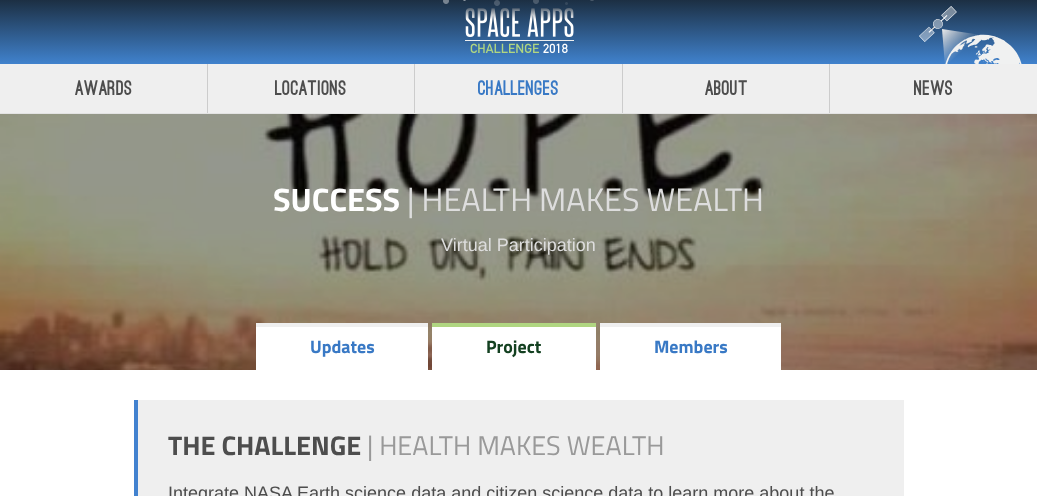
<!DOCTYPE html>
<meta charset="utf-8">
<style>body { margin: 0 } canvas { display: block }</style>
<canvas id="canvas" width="1037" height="496"></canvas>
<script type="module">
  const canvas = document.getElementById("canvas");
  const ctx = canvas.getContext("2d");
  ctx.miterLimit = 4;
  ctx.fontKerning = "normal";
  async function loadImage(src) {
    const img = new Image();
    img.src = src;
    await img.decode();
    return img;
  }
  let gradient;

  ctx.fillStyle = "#ffffff";
  ctx.fillRect(0, 0, 1037, 496);
  ctx.fillStyle = "#efefef";
  ctx.fillRect(0, 64, 1037, 49);
  ctx.fillStyle = "#e3e3e3";
  ctx.fillRect(0, 113, 1037, 1);
  gradient = ctx.createLinearGradient(519, 64, 519, 0);
  gradient.addColorStop(0, "#4082cd");
  gradient.addColorStop(1, "#1c2f43");
  ctx.fillStyle = gradient;
  ctx.fillRect(0, 0, 1037, 64);
  ctx.drawImage(await loadImage("img1.png"), 443, 0, 151, 6);
  ctx.drawImage(await loadImage("img2.png"), 465, 8, 109, 46);
  ctx.drawImage(await loadImage("img3.png"), 919, 6, 103, 58);
  ctx.letterSpacing = "0.25px";
  ctx.font = "900 20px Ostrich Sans";
  ctx.fillStyle = "#4d4d4d";
  ctx.fillText("Awards", 75, 95);
  ctx.fillStyle = "#cccccc";
  ctx.fillRect(207, 64, 1, 49);
  ctx.fillStyle = "#4d4d4d";
  ctx.fillText("Locations", 275, 95);
  ctx.fillStyle = "#cccccc";
  ctx.fillRect(414, 64, 1, 49);
  ctx.fillStyle = "#3979c5";
  ctx.fillText("Challenges", 478, 95);
  ctx.fillStyle = "#cccccc";
  ctx.fillRect(622, 64, 1, 49);
  ctx.fillStyle = "#4d4d4d";
  ctx.fillText("About", 705, 95);
  ctx.fillStyle = "#cccccc";
  ctx.fillRect(829, 64, 1, 49);
  ctx.fillStyle = "#4d4d4d";
  ctx.fillText("News", 914, 95);
  ctx.drawImage(await loadImage("img4.png"), 0, 114, 1037, 256);
  ctx.letterSpacing = "0px";
  ctx.font = "bold 32.4px Titillium Web";
  ctx.fillStyle = "#ffffff";
  ctx.fillText("SUCCESS", 273, 211);
  ctx.font = "32.4px Titillium Web";
  ctx.fillStyle = "#dddddd";
  ctx.fillText("| HEALTH MAKES WEALTH", 407, 211);
  ctx.font = "18px Liberation Sans";
  ctx.fillText("Virtual Participation", 441, 251);
  ctx.fillStyle = "#ffffff";
  ctx.fillRect(256, 327, 172, 43);
  ctx.fillStyle = "#efefef";
  ctx.fillRect(256, 323, 172, 4);
  ctx.font = "bold 18px Titillium Web";
  ctx.fillStyle = "#3979c5";
  ctx.fillText("Updates", 310, 353);
  ctx.fillStyle = "#ffffff";
  ctx.fillRect(432, 327, 164, 43);
  ctx.fillStyle = "#b0d681";
  ctx.fillRect(432, 323, 164, 4);
  ctx.fillStyle = "#134020";
  ctx.fillText("Project", 486, 353);
  ctx.fillStyle = "#ffffff";
  ctx.fillRect(600, 327, 181, 43);
  ctx.fillStyle = "#efefef";
  ctx.fillRect(600, 323, 181, 4);
  ctx.fillStyle = "#3979c5";
  ctx.fillText("Members", 654, 353);
  ctx.fillStyle = "#efefef";
  ctx.fillRect(138, 400, 766, 96);
  ctx.fillStyle = "#4282cf";
  ctx.fillRect(134, 400, 4, 96);
  ctx.font = "bold 27px Titillium Web";
  ctx.fillStyle = "#4d4d4d";
  ctx.fillText("THE CHALLENGE", 168, 455);
  ctx.font = "27px Titillium Web";
  ctx.fillStyle = "#999999";
  ctx.fillText("| HEALTH MAKES WEALTH", 367, 455);
  ctx.font = "18px Liberation Sans";
  ctx.fillStyle = "#4d4d4d";
  ctx.fillText("Integrate NASA Earth science data and citizen science data to learn more about the", 168, 499);
</script>
